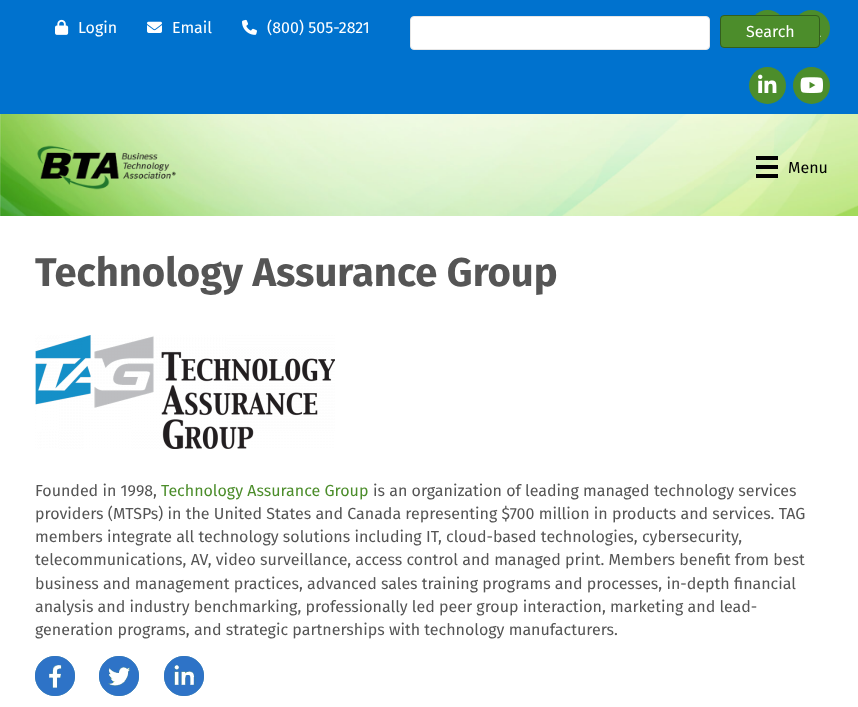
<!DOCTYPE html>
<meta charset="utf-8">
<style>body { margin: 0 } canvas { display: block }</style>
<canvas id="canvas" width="858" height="707"></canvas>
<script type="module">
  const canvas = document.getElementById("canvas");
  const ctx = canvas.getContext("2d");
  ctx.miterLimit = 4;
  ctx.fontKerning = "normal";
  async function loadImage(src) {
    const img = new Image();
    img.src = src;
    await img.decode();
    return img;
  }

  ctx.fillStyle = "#ffffff";
  ctx.fillRect(0, 0, 858, 707);
  ctx.fillStyle = "#0072ce";
  ctx.fillRect(0, 0, 858, 114);
  ctx.drawImage(await loadImage("img1.png"), 55, 19, 14, 16);
  ctx.font = "16px Fira Sans";
  ctx.fillStyle = "#ffffff";
  ctx.fillText("Login", 78, 33);
  ctx.drawImage(await loadImage("img2.png"), 147, 21, 15, 12);
  ctx.fillText("Email", 172, 33);
  ctx.drawImage(await loadImage("img3.png"), 242, 19, 15, 16);
  ctx.fillText("(800) 505-2821", 267, 33);
  ctx.fillStyle = "#4c8d2b";
  ctx.beginPath();
  ctx.arc(767.5, 28.5, 18.5, 0, Math.PI * 2);
  ctx.fill();
  ctx.beginPath();
  ctx.arc(811.5, 28.5, 18.5, 0, Math.PI * 2);
  ctx.fill();
  ctx.drawImage(await loadImage("img4.png"), 820, 35, 1, 2);
  ctx.beginPath();
  ctx.arc(767.5, 85.5, 18.5, 0, Math.PI * 2);
  ctx.fill();
  ctx.drawImage(await loadImage("img5.png"), 758, 74, 19, 19);
  ctx.beginPath();
  ctx.arc(811.5, 85.5, 18.5, 0, Math.PI * 2);
  ctx.fill();
  ctx.drawImage(await loadImage("img6.png"), 800, 77, 23, 16);
  ctx.fillStyle = "#ffffff";
  ctx.beginPath();
  ctx.roundRect(410.5, 16.5, 299, 33, 3.5);
  ctx.fill();
  ctx.strokeStyle = "#e6e6e6";
  ctx.stroke();
  ctx.fillStyle = "#4c8d2b";
  ctx.beginPath();
  ctx.roundRect(720.5, 15.5, 99, 32, 3.5);
  ctx.fill();
  ctx.strokeStyle = "#335e1d";
  ctx.stroke();
  ctx.fillStyle = "#ffffff";
  ctx.fillText("Search", 746, 37);
  ctx.drawImage(await loadImage("img7.png"), 0, 114, 858, 102);
  ctx.drawImage(await loadImage("img8.png"), 37, 145, 139, 45);
  ctx.fillStyle = "#010101";
  ctx.fillRect(756, 156, 22, 4);
  ctx.fillRect(756, 165, 22, 4);
  ctx.fillRect(756, 174, 22, 4);
  ctx.fillText("Menu", 788, 173);
  ctx.font = "bold 40px Fira Sans";
  ctx.fillStyle = "#555555";
  ctx.fillText("Technology Assurance Group", 35, 286);
  ctx.drawImage(await loadImage("img9.png"), 35, 335, 300, 114);
  ctx.font = "16px Fira Sans";
  ctx.fillText("Founded in 1998,", 35, 496);
  ctx.fillStyle = "#4c8d2b";
  ctx.fillText("Technology Assurance Group", 161, 496);
  ctx.fillStyle = "#555555";
  ctx.fillText("is an organization of leading managed technology services", 373, 496);
  ctx.fillText("providers (MTSPs) in the United States and Canada representing $700 million in products and services. TAG", 35, 519);
  ctx.fillText("members integrate all technology solutions including IT, cloud-based technologies, cybersecurity,", 35, 542);
  ctx.fillText("telecommunications, AV, video surveillance, access control and managed print. Members benefit from best", 35, 565);
  ctx.fillText("business and management practices, advanced sales training programs and processes, in-depth financial", 35, 589);
  ctx.fillText("analysis and industry benchmarking, professionally led peer group interaction, marketing and lead-", 35, 612);
  ctx.fillText("generation programs, and strategic partnerships with technology manufacturers.", 35, 635);
  ctx.drawImage(await loadImage("img10.png"), 35, 656, 40, 40);
  ctx.drawImage(await loadImage("img11.png"), 99, 656, 40, 40);
  ctx.drawImage(await loadImage("img12.png"), 164, 656, 40, 40);
</script>
